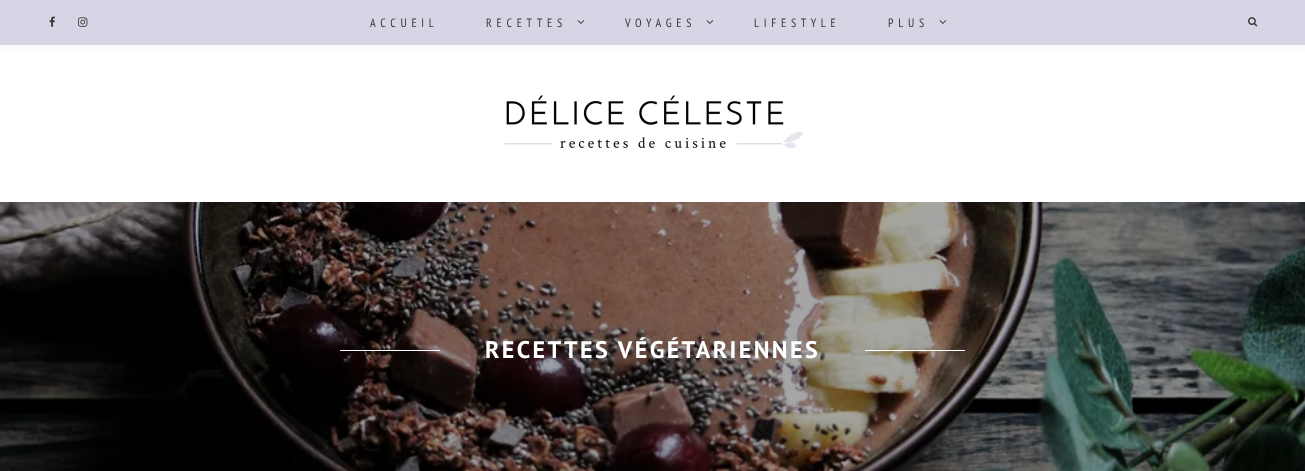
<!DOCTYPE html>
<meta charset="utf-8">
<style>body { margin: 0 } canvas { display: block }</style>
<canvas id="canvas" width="1305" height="471"></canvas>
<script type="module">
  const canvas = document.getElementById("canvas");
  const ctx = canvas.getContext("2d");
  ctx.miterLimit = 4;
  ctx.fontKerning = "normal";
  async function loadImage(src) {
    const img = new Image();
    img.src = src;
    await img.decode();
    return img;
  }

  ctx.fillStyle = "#ffffff";
  ctx.fillRect(0, 0, 1305, 471);
  ctx.fillStyle = "rgba(0, 0, 0, 0.05)";
  ctx.filter = "blur(5px)";
  ctx.beginPath();
  ctx.rect(0, 2, 1305, 45);
  ctx.fill();
  ctx.filter = "none";
  ctx.fillStyle = "#d6d5e5";
  ctx.fillRect(0, 0, 1305, 45);
  ctx.drawImage(await loadImage("img1.png"), 49, 16, 6, 11);
  ctx.drawImage(await loadImage("img2.png"), 78, 17, 10, 10);
  ctx.letterSpacing = "4.75px";
  ctx.font = "12px PT Sans Narrow";
  ctx.fillStyle = "#363636";
  ctx.fillText("ACCUEIL", 370, 27);
  ctx.fillText("RECETTES", 486, 27);
  ctx.drawImage(await loadImage("img3.png"), 577, 20, 8, 4);
  ctx.fillText("VOYAGES", 625, 27);
  ctx.drawImage(await loadImage("img3.png"), 706, 20, 8, 4);
  ctx.fillText("LIFESTYLE", 754, 27);
  ctx.fillText("PLUS", 888, 27);
  ctx.drawImage(await loadImage("img3.png"), 939, 20, 8, 4);
  ctx.drawImage(await loadImage("img4.png"), 1248, 17, 10, 10);
  ctx.drawImage(await loadImage("img5.png"), 504, 95, 299, 54);
  ctx.drawImage(await loadImage("img6.png"), 0, 202, 1305, 269);
  ctx.fillStyle = "#ffffff";
  ctx.fillRect(340, 350, 100, 1);
  ctx.letterSpacing = "2.4px";
  ctx.font = "bold 24px PT Sans";
  ctx.fillText("RECETTES VÉGÉTARIENNES", 485, 358);
  ctx.fillRect(865, 350, 100, 1);
</script>
